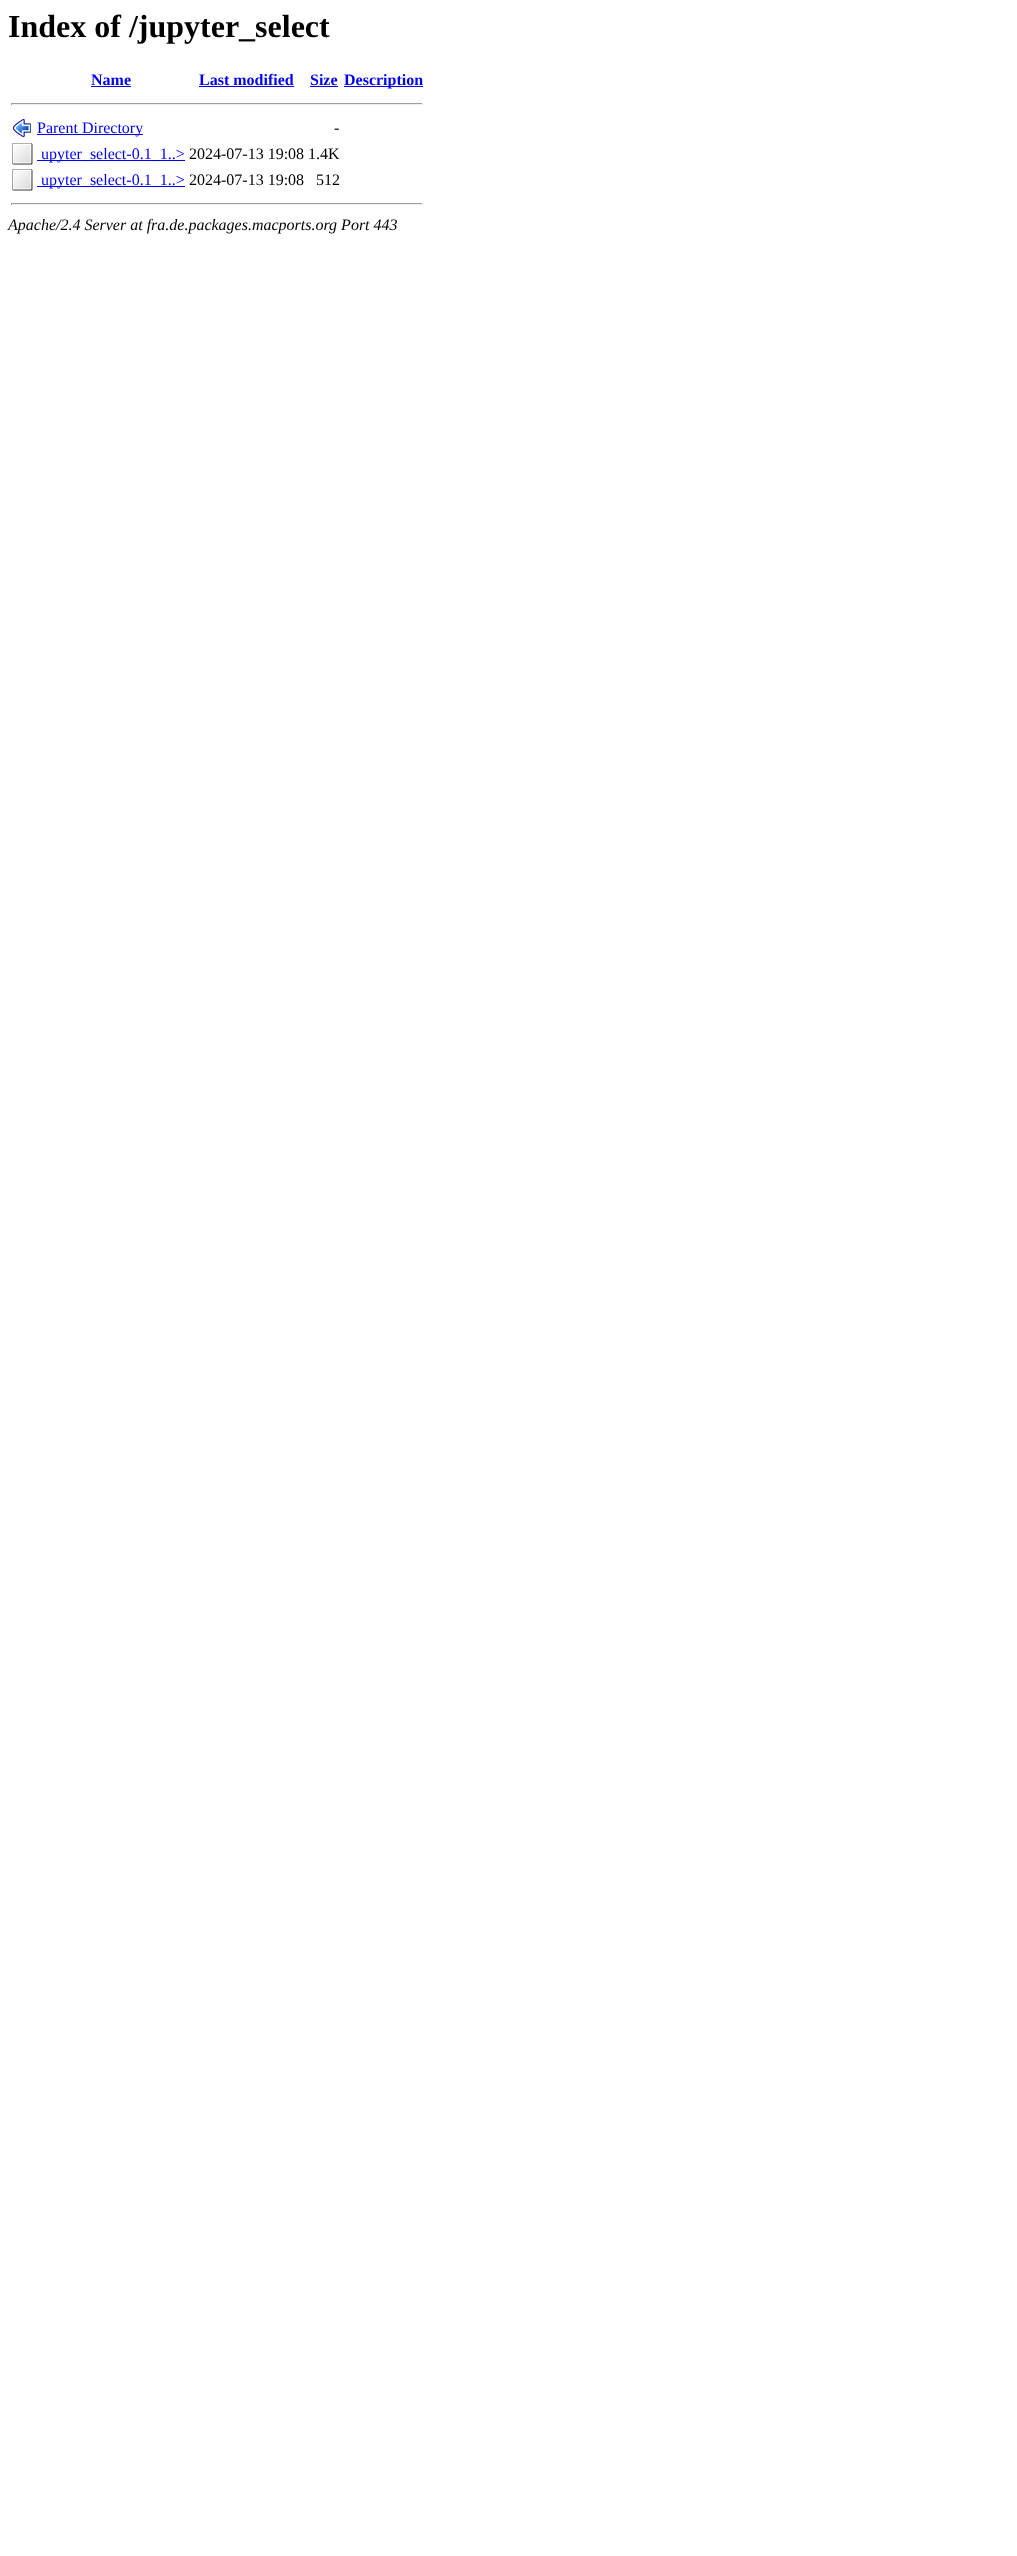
<!DOCTYPE html>
<meta charset="utf-8">
<style>body { margin: 0 } canvas { display: block }</style>
<canvas id="canvas" width="1017" height="2556"></canvas>
<script type="module">
  const canvas = document.getElementById("canvas");
  const ctx = canvas.getContext("2d");
  ctx.miterLimit = 4;
  ctx.fontKerning = "normal";
  async function loadImage(src) {
    const img = new Image();
    img.src = src;
    await img.decode();
    return img;
  }

  ctx.fillStyle = "#ffffff";
  ctx.fillRect(0, 0, 1017, 2556);
  ctx.font = "bold 32px Liberation Serif";
  ctx.fillStyle = "#000000";
  ctx.fillText("Index of /jupyter_select", 8, 37);
  ctx.font = "bold 16px Liberation Serif";
  ctx.fillStyle = "#0000ee";
  ctx.fillText("Name", 91, 85);
  ctx.fillRect(91, 86, 40, 1);
  ctx.fillText("Last modified", 199, 85);
  ctx.fillRect(199, 86, 95, 1);
  ctx.fillText("Size", 310, 85);
  ctx.fillRect(310, 86, 28, 1);
  ctx.fillRect(344, 86, 79, 1);
  ctx.fillText("Description", 344, 85);
  ctx.fillStyle = "#9f9f9f";
  ctx.fillRect(11, 103, 412, 1);
  ctx.fillStyle = "#eeeeee";
  ctx.fillRect(422, 103, 1, 2);
  ctx.fillRect(11, 104, 412, 1);
  ctx.fillStyle = "#9f9f9f";
  ctx.fillRect(11, 103, 1, 2);
  ctx.drawImage(await loadImage("img1.png"), 13, 119, 18, 18);
  ctx.fillStyle = "#0000ee";
  ctx.fillRect(37, 134, 106, 1);
  ctx.font = "16px Liberation Serif";
  ctx.fillText("Parent Directory", 37, 133);
  ctx.fillStyle = "#000000";
  ctx.fillText("-", 334, 133);
  ctx.drawImage(await loadImage("img2.png"), 12, 143, 21, 22);
  ctx.fillStyle = "#0000ee";
  ctx.fillRect(37, 160, 148, 1);
  ctx.fillText("upyter_select-0.1_1..>", 41, 159);
  ctx.fillStyle = "#000000";
  ctx.fillText("2024-07-13 19:08 1.4K", 189, 159);
  ctx.drawImage(await loadImage("img2.png"), 12, 169, 21, 22);
  ctx.fillStyle = "#0000ee";
  ctx.fillRect(37, 186, 148, 1);
  ctx.fillText("upyter_select-0.1_1..>", 41, 185);
  ctx.fillStyle = "#000000";
  ctx.fillText("2024-07-13 19:08", 189, 185);
  ctx.fillText("512", 316, 185);
  ctx.fillStyle = "#9f9f9f";
  ctx.fillRect(11, 203, 412, 1);
  ctx.fillStyle = "#eeeeee";
  ctx.fillRect(422, 203, 1, 2);
  ctx.fillRect(11, 204, 412, 1);
  ctx.fillStyle = "#9f9f9f";
  ctx.fillRect(11, 203, 1, 2);
  ctx.font = "italic 16px Liberation Serif";
  ctx.fillStyle = "#000000";
  ctx.fillText("Apache/2.4 Server at fra.de.packages.macports.org Port 443", 8, 230);
</script>
